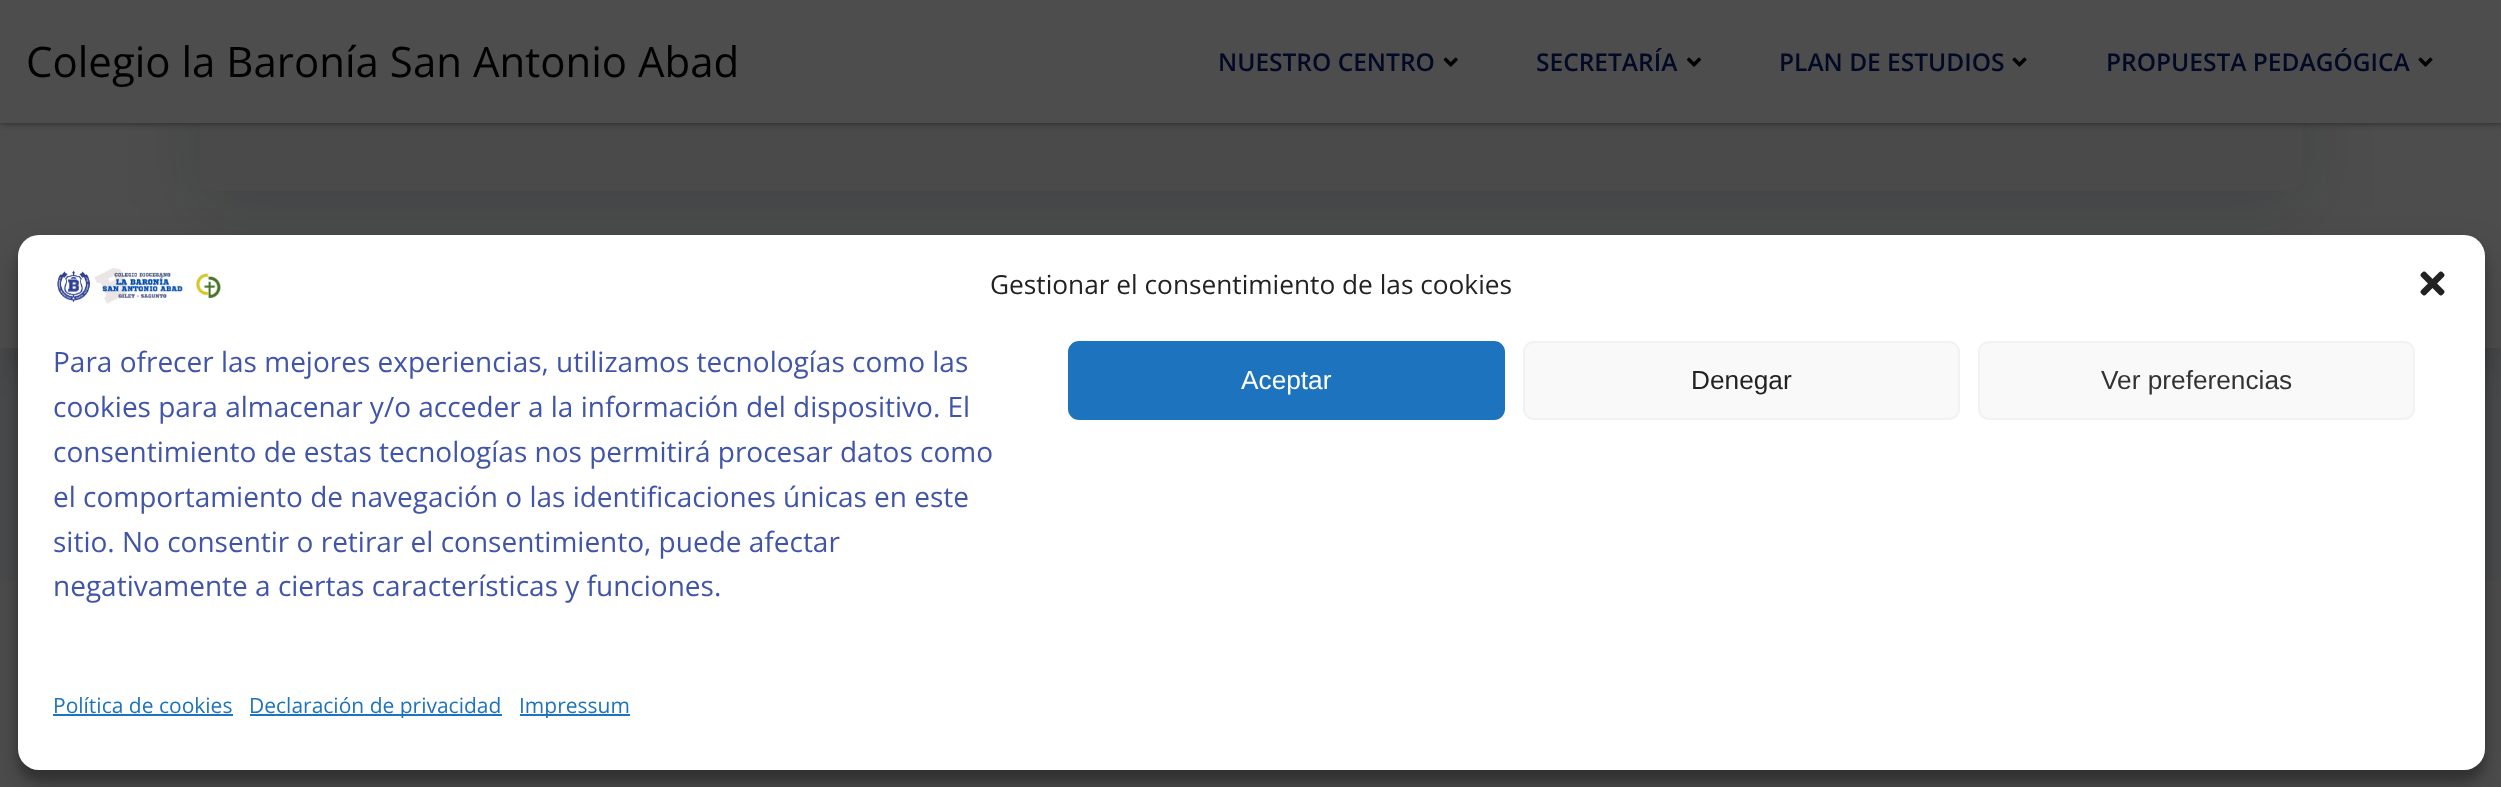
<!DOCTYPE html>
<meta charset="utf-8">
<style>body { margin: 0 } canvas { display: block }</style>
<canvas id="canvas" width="2501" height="787"></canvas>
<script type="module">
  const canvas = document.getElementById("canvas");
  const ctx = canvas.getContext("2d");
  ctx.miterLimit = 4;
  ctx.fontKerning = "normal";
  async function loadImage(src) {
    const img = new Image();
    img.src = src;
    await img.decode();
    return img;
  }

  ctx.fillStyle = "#4d4d4d";
  ctx.fillRect(0, 0, 2501, 787);
  ctx.fillStyle = "#4a4b4c";
  ctx.fillRect(0, 348, 2501, 233);
  ctx.fillStyle = "rgba(15, 16, 17, 0.3)";
  ctx.filter = "blur(17.5px)";
  ctx.beginPath();
  ctx.rect(18, -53, 2467, 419);
  ctx.fill();
  ctx.filter = "none";
  ctx.fillStyle = "#4d4d4d";
  ctx.fillRect(0, 123, 2501, 225);
  ctx.fillStyle = "rgba(0, 15, 22, 0.15)";
  ctx.filter = "blur(35px)";
  ctx.beginPath();
  ctx.roundRect(200, -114, 2103, 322, 9);
  ctx.fill();
  ctx.filter = "none";
  ctx.fillStyle = "#4a4a4b";
  ctx.beginPath();
  ctx.roundRect(200, -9, 2103, 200, 9);
  ctx.fill();
  ctx.fillStyle = "rgba(0, 0, 0, 0.5)";
  ctx.filter = "blur(3.5px)";
  ctx.beginPath();
  ctx.rect(0, 0, 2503, 123);
  ctx.fill();
  ctx.filter = "none";
  ctx.fillStyle = "#4d4d4d";
  ctx.fillRect(0, 0, 2501, 123);
  ctx.font = "42px Open Sans";
  ctx.fillStyle = "#000000";
  ctx.fillText("Colegio la Baronía San Antonio Abad", 26, 77);
  ctx.font = "600 24.5px Open Sans";
  ctx.fillStyle = "#020925";
  ctx.fillText("NUESTRO CENTRO", 1218, 71);
  ctx.drawImage(await loadImage("img1.png"), 1443, 57, 15, 10);
  ctx.fillText("SECRETARÍA", 1536, 71);
  ctx.drawImage(await loadImage("img2.png"), 1687, 57, 14, 10);
  ctx.fillText("PLAN DE ESTUDIOS", 1779, 71);
  ctx.drawImage(await loadImage("img3.png"), 2012, 57, 15, 10);
  ctx.fillText("PROPUESTA PEDAGÓGICA", 2106, 71);
  ctx.drawImage(await loadImage("img3.png"), 2418, 57, 15, 10);
  ctx.fillStyle = "rgba(0, 0, 0, 0.23)";
  ctx.filter = "blur(5px)";
  ctx.beginPath();
  ctx.roundRect(18, 245, 2467, 536, 21);
  ctx.fill();
  ctx.filter = "none";
  ctx.fillStyle = "rgba(0, 0, 0, 0.19)";
  ctx.filter = "blur(17.5px)";
  ctx.beginPath();
  ctx.roundRect(18, 252, 2467, 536, 21);
  ctx.fill();
  ctx.filter = "none";
  ctx.fillStyle = "#ffffff";
  ctx.beginPath();
  ctx.roundRect(18, 235, 2467, 535, 21);
  ctx.fill();
  ctx.drawImage(await loadImage("img4.png"), 57, 268, 164, 36);
  ctx.font = "26.25px Open Sans";
  ctx.fillStyle = "#222222";
  ctx.fillText("Gestionar el consentimiento de las cookies", 990, 294);
  ctx.drawImage(await loadImage("img5.png"), 2420, 271, 25, 25);
  ctx.font = "28px Open Sans";
  ctx.fillStyle = "#4055a9";
  ctx.fillText("Para ofrecer las mejores experiencias, utilizamos tecnologías como las", 53, 372);
  ctx.fillText("cookies para almacenar y/o acceder a la información del dispositivo. El", 53, 417);
  ctx.fillText("consentimiento de estas tecnologías nos permitirá procesar datos como", 53, 462);
  ctx.fillText("el comportamiento de navegación o las identificaciones únicas en este", 53, 507);
  ctx.fillText("sitio. No consentir o retirar el consentimiento, puede afectar", 53, 552);
  ctx.fillText("negativamente a ciertas características y funciones.", 53, 596);
  ctx.fillStyle = "#1e73be";
  ctx.beginPath();
  ctx.roundRect(1069, 342, 435, 77, 10);
  ctx.fill();
  ctx.strokeStyle = "#1e73be";
  ctx.lineWidth = 2;
  ctx.stroke();
  ctx.font = "26.25px Liberation Sans";
  ctx.fillStyle = "#ffffff";
  ctx.fillText("Aceptar", 1241, 389);
  ctx.fillStyle = "#f9f9f9";
  ctx.beginPath();
  ctx.roundRect(1524, 342, 435, 77, 10);
  ctx.fill();
  ctx.strokeStyle = "#f2f2f2";
  ctx.stroke();
  ctx.fillStyle = "#222222";
  ctx.fillText("Denegar", 1691, 389);
  ctx.fillStyle = "#f9f9f9";
  ctx.beginPath();
  ctx.roundRect(1979, 342, 435, 77, 10);
  ctx.fill();
  ctx.stroke();
  ctx.fillStyle = "#333333";
  ctx.fillText("Ver preferencias", 2101, 389);
  ctx.font = "21px Open Sans";
  ctx.fillStyle = "#1e73be";
  ctx.fillText("Política de cookies", 53, 713);
  ctx.fillRect(53, 714, 180, 2);
  ctx.fillRect(250, 714, 252, 2);
  ctx.fillText("Declaración de privacidad", 249, 713);
  ctx.fillRect(520, 714, 110, 2);
  ctx.fillText("Impressum", 519, 713);
</script>
